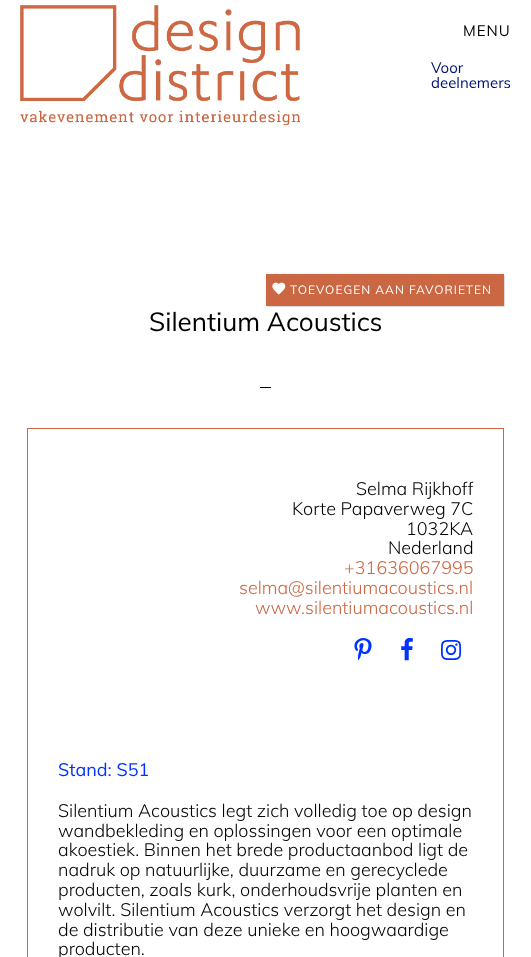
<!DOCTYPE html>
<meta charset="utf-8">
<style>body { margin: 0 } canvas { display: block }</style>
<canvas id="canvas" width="531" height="957"></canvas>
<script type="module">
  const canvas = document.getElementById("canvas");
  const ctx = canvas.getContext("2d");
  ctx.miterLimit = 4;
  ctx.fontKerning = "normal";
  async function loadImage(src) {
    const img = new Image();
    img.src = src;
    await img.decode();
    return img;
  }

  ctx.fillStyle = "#ffffff";
  ctx.fillRect(0, 0, 531, 957);
  ctx.drawImage(await loadImage("img1.png"), 20, 5, 280, 120);
  ctx.letterSpacing = "1px";
  ctx.font = "15px Muli";
  ctx.fillStyle = "#000000";
  ctx.fillText("MENU", 463, 36);
  ctx.letterSpacing = "0px";
  ctx.fillStyle = "#00117c";
  ctx.fillText("Voor", 431, 73);
  ctx.fillText("deelnemers", 431, 88);
  ctx.strokeStyle = "#cb6843";
  ctx.strokeRect(27.5, 428.5, 476, 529);
  ctx.fillStyle = "rgba(0, 0, 0, 0.1)";
  ctx.filter = "blur(0.5px)";
  ctx.beginPath();
  ctx.rect(267, 275, 238, 32);
  ctx.fill();
  ctx.filter = "none";
  ctx.filter = "blur(1px)";
  ctx.beginPath();
  ctx.rect(266, 274, 238, 32);
  ctx.fill();
  ctx.filter = "none";
  ctx.fillStyle = "#cb6843";
  ctx.fillRect(266, 274, 238, 32);
  ctx.drawImage(await loadImage("img2.png"), 272, 282, 14, 13);
  ctx.letterSpacing = "1px";
  ctx.font = "12px Muli";
  ctx.fillStyle = "#ffffff";
  ctx.fillText("TOEVOEGEN AAN FAVORIETEN", 290, 294);
  ctx.letterSpacing = "0px";
  ctx.font = "18px Muli";
  ctx.fillStyle = "#0033ff";
  ctx.fillText("Stand: S51", 58, 776);
  ctx.font = "300 18px Muli";
  ctx.fillStyle = "#000000";
  ctx.fillText("Silentium Acoustics legt zich volledig toe op design", 58, 817);
  ctx.fillText("wandbekleding en oplossingen voor een optimale", 58, 837);
  ctx.fillText("akoestiek. Binnen het brede productaanbod ligt de", 58, 856);
  ctx.fillText("nadruk op natuurlijke, duurzame en gerecyclede", 58, 876);
  ctx.fillText("producten, zoals kurk, onderhoudsvrije planten en", 58, 896);
  ctx.fillText("wolvilt. Silentium Acoustics verzorgt het design en", 58, 916);
  ctx.fillText("de distributie van deze unieke en hoogwaardige", 58, 936);
  ctx.fillText("producten.", 58, 955);
  ctx.fillText("Selma Rijkhoff", 356, 495);
  ctx.fillText("Korte Papaverweg 7C", 292, 515);
  ctx.fillText("1032KA", 406, 535);
  ctx.fillText("Nederland", 388, 554);
  ctx.fillStyle = "#cb6843";
  ctx.fillText("+31636067995", 344, 574);
  ctx.fillText("selma@silentiumacoustics.nl", 239, 594);
  ctx.fillText("www.silentiumacoustics.nl", 255, 614);
  ctx.drawImage(await loadImage("img3.png"), 354, 638, 18, 23);
  ctx.drawImage(await loadImage("img4.png"), 401, 638, 12, 23);
  ctx.drawImage(await loadImage("img5.png"), 441, 640, 21, 20);
  ctx.font = "26px Muli";
  ctx.fillStyle = "#000000";
  ctx.fillText("Silentium Acoustics", 149, 331);
  ctx.fillRect(260, 387, 11, 1);
</script>
